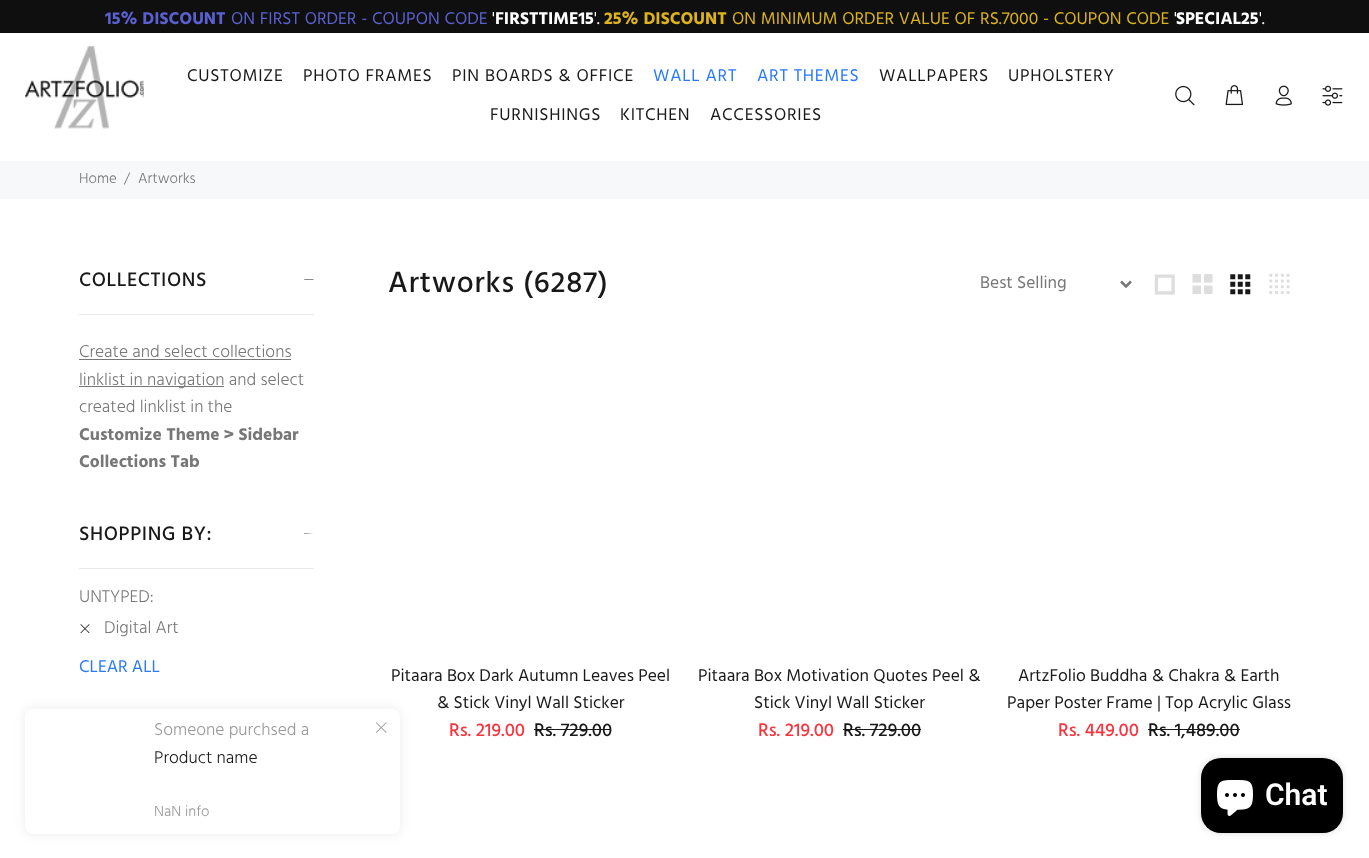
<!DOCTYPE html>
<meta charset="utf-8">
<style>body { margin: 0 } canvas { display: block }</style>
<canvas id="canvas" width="1369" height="858"></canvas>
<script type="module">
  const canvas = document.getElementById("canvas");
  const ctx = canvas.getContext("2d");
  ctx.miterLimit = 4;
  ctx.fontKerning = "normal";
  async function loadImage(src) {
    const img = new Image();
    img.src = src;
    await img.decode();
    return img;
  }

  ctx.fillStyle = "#ffffff";
  ctx.fillRect(0, 0, 1369, 858);
  ctx.fillStyle = "#0f0f0f";
  ctx.fillRect(0, 0, 1369, 33);
  ctx.wordSpacing = "0.5px";
  ctx.font = "bold 17.5px Hind";
  ctx.fillStyle = "#5b60d1";
  ctx.fillText("15% DISCOUNT", 105, 24);
  ctx.font = "17.5px Hind";
  ctx.fillText("ON FIRST ORDER - COUPON CODE", 231, 24);
  ctx.wordSpacing = "0px";
  ctx.fillStyle = "#ffffff";
  ctx.fillText("'", 492, 24);
  ctx.font = "bold 17.5px Hind";
  ctx.fillText("FIRSTTIME15", 495, 24);
  ctx.font = "17.5px Hind";
  ctx.fillText("'.", 594, 24);
  ctx.wordSpacing = "0.5px";
  ctx.font = "bold 17.5px Hind";
  ctx.fillStyle = "#deb41b";
  ctx.fillText("25% DISCOUNT", 604, 24);
  ctx.font = "17.5px Hind";
  ctx.fillText("ON MINIMUM ORDER VALUE OF RS.7000 - COUPON CODE", 732, 24);
  ctx.wordSpacing = "0px";
  ctx.fillStyle = "#ffffff";
  ctx.fillText("'", 1174, 24);
  ctx.font = "bold 17.5px Hind";
  ctx.fillText("SPECIAL25", 1176, 24);
  ctx.font = "17.5px Hind";
  ctx.fillText("'.", 1259, 24);
  ctx.drawImage(await loadImage("img1.png"), 25, 46, 119, 83);
  ctx.letterSpacing = "0.75px";
  ctx.fillStyle = "#191919";
  ctx.fillText("CUSTOMIZE", 187, 81);
  ctx.fillText("PHOTO FRAMES", 303, 81);
  ctx.fillText("PIN BOARDS & OFFICE", 452, 81);
  ctx.fillStyle = "#2879fe";
  ctx.fillText("WALL ART", 653, 81);
  ctx.fillText("ART THEMES", 757, 81);
  ctx.fillStyle = "#191919";
  ctx.fillText("WALLPAPERS", 879, 81);
  ctx.fillText("UPHOLSTERY", 1008, 81);
  ctx.fillText("FURNISHINGS", 490, 120);
  ctx.fillText("KITCHEN", 620, 120);
  ctx.fillText("ACCESSORIES", 710, 120);
  ctx.drawImage(await loadImage("img2.png"), 1175, 85, 20, 21);
  ctx.drawImage(await loadImage("img3.png"), 1225, 85, 19, 21);
  ctx.drawImage(await loadImage("img4.png"), 1275, 85, 17, 21);
  ctx.drawImage(await loadImage("img5.png"), 1322, 85, 21, 21);
  ctx.fillStyle = "#f7f8fa";
  ctx.fillRect(0, 161, 1369, 38);
  ctx.letterSpacing = "0px";
  ctx.font = "300 15px Hind";
  ctx.fillStyle = "#777777";
  ctx.fillText("Home", 79, 183);
  ctx.fillText("/", 124, 183);
  ctx.fillText("Artworks", 138, 183);
  ctx.fillStyle = "#e9e7e7";
  ctx.fillRect(79, 314, 235, 1);
  ctx.letterSpacing = "0.6px";
  ctx.font = "500 20px Hind";
  ctx.fillStyle = "#191919";
  ctx.fillText("COLLECTIONS", 79, 286);
  ctx.beginPath();
  ctx.moveTo(313.5, 279.5);
  ctx.lineTo(313.5, 280);
  ctx.lineTo(304, 280);
  ctx.lineTo(304.5, 279.5);
  ctx.closePath();
  ctx.fill();
  ctx.letterSpacing = "0px";
  ctx.font = "300 17.5px Hind";
  ctx.fillStyle = "#777777";
  ctx.fillText("Create and select collections", 79, 357);
  ctx.fillRect(79, 359, 212, 1);
  ctx.fillRect(79, 386, 145, 1);
  ctx.fillText("linklist in navigation and select", 79, 385);
  ctx.fillText("created linklist in the", 79, 412);
  ctx.font = "bold 17.5px Hind";
  ctx.fillText("Customize Theme > Sidebar", 79, 440);
  ctx.fillText("Collections Tab", 79, 467);
  ctx.fillStyle = "#e9e7e7";
  ctx.fillRect(79, 568, 235, 1);
  ctx.letterSpacing = "0.6px";
  ctx.font = "500 20px Hind";
  ctx.fillStyle = "#191919";
  ctx.fillText("SHOPPING BY:", 79, 540);
  ctx.beginPath();
  ctx.moveTo(313.5, 533.5);
  ctx.lineTo(304, 533.5);
  ctx.lineTo(304.5, 533);
  ctx.closePath();
  ctx.fill();
  ctx.letterSpacing = "0px";
  ctx.font = "300 17.5px Hind";
  ctx.fillStyle = "#777777";
  ctx.fillText("UNTYPED:", 79, 602);
  ctx.drawImage(await loadImage("img6.png"), 80, 624, 10, 10);
  ctx.fillText("Digital Art", 104, 633);
  ctx.font = "17.5px Hind";
  ctx.fillStyle = "#2879fe";
  ctx.fillText("CLEAR ALL", 79, 672);
  ctx.letterSpacing = "0.9px";
  ctx.font = "500 30px Hind";
  ctx.fillStyle = "#191919";
  ctx.fillText("Artworks (6287)", 388, 292);
  ctx.beginPath();
  ctx.moveTo(1121, 281.5);
  ctx.lineTo(1126, 286.5);
  ctx.lineTo(1131, 281.5);
  ctx.strokeStyle = "#777777";
  ctx.lineWidth = 2.5;
  ctx.stroke();
  ctx.letterSpacing = "0px";
  ctx.font = "17.5px Hind";
  ctx.fillStyle = "#777777";
  ctx.fillText("Best Selling", 980, 288);
  ctx.drawImage(await loadImage("img7.png"), 1154, 274, 21, 21);
  ctx.drawImage(await loadImage("img8.png"), 1192, 274, 21, 20);
  ctx.drawImage(await loadImage("img9.png"), 1230, 274, 21, 21);
  ctx.drawImage(await loadImage("img10.png"), 1269, 273, 21, 21);
  ctx.fillStyle = "#191919";
  ctx.fillText("Pitaara Box Dark Autumn Leaves Peel", 391, 681);
  ctx.fillText("& Stick Vinyl Wall Sticker", 437, 708);
  ctx.font = "500 18.75px Hind";
  ctx.fillStyle = "#f8353e";
  ctx.fillText("Rs. 219.00", 449, 736);
  ctx.fillStyle = "#191919";
  ctx.fillText("Rs. 729.00", 534, 736);
  ctx.fillRect(534, 729, 77, 1);
  ctx.font = "17.5px Hind";
  ctx.fillText("Pitaara Box Motivation Quotes Peel &", 698, 681);
  ctx.fillText("Stick Vinyl Wall Sticker", 754, 708);
  ctx.font = "500 18.75px Hind";
  ctx.fillStyle = "#f8353e";
  ctx.fillText("Rs. 219.00", 758, 736);
  ctx.fillStyle = "#191919";
  ctx.fillText("Rs. 729.00", 843, 736);
  ctx.fillRect(843, 729, 78, 1);
  ctx.font = "17.5px Hind";
  ctx.fillText("ArtzFolio Buddha & Chakra & Earth", 1018, 681);
  ctx.fillText("Paper Poster Frame | Top Acrylic Glass", 1007, 708);
  ctx.font = "500 18.75px Hind";
  ctx.fillStyle = "#f8353e";
  ctx.fillText("Rs. 449.00", 1058, 736);
  ctx.fillStyle = "#191919";
  ctx.fillText("Rs. 1,489.00", 1148, 736);
  ctx.fillRect(1148, 729, 92, 1);
  ctx.fillStyle = "rgba(0, 0, 0, 0.08)";
  ctx.filter = "blur(6px)";
  ctx.beginPath();
  ctx.roundRect(25, 709, 375, 125, 8);
  ctx.fill();
  ctx.filter = "none";
  ctx.fillStyle = "#ffffff";
  ctx.beginPath();
  ctx.roundRect(25, 709, 375, 125, 8);
  ctx.fill();
  ctx.font = "300 17.5px Hind";
  ctx.fillStyle = "#999999";
  ctx.fillText("Someone purchsed a", 154, 735);
  ctx.fillStyle = "#191919";
  ctx.fillText("Product name", 154, 763);
  ctx.font = "300 15px Hind";
  ctx.fillStyle = "#999999";
  ctx.fillText("NaN info", 154, 816);
  ctx.drawImage(await loadImage("img11.png"), 376, 722, 11, 11);
  ctx.fillStyle = "rgba(0, 0, 0, 0.15)";
  ctx.filter = "blur(3px)";
  ctx.beginPath();
  ctx.roundRect(1201, 758, 142, 75, 20);
  ctx.fill();
  ctx.filter = "none";
  ctx.fillStyle = "#000000";
  ctx.beginPath();
  ctx.roundRect(1201, 758, 142, 75, 20);
  ctx.fill();
  ctx.drawImage(await loadImage("img12.png"), 1217, 780, 36, 36);
  ctx.font = "600 30px Roboto";
  ctx.fillStyle = "#ffffff";
  ctx.fillText("Chat", 1265, 805);
</script>
